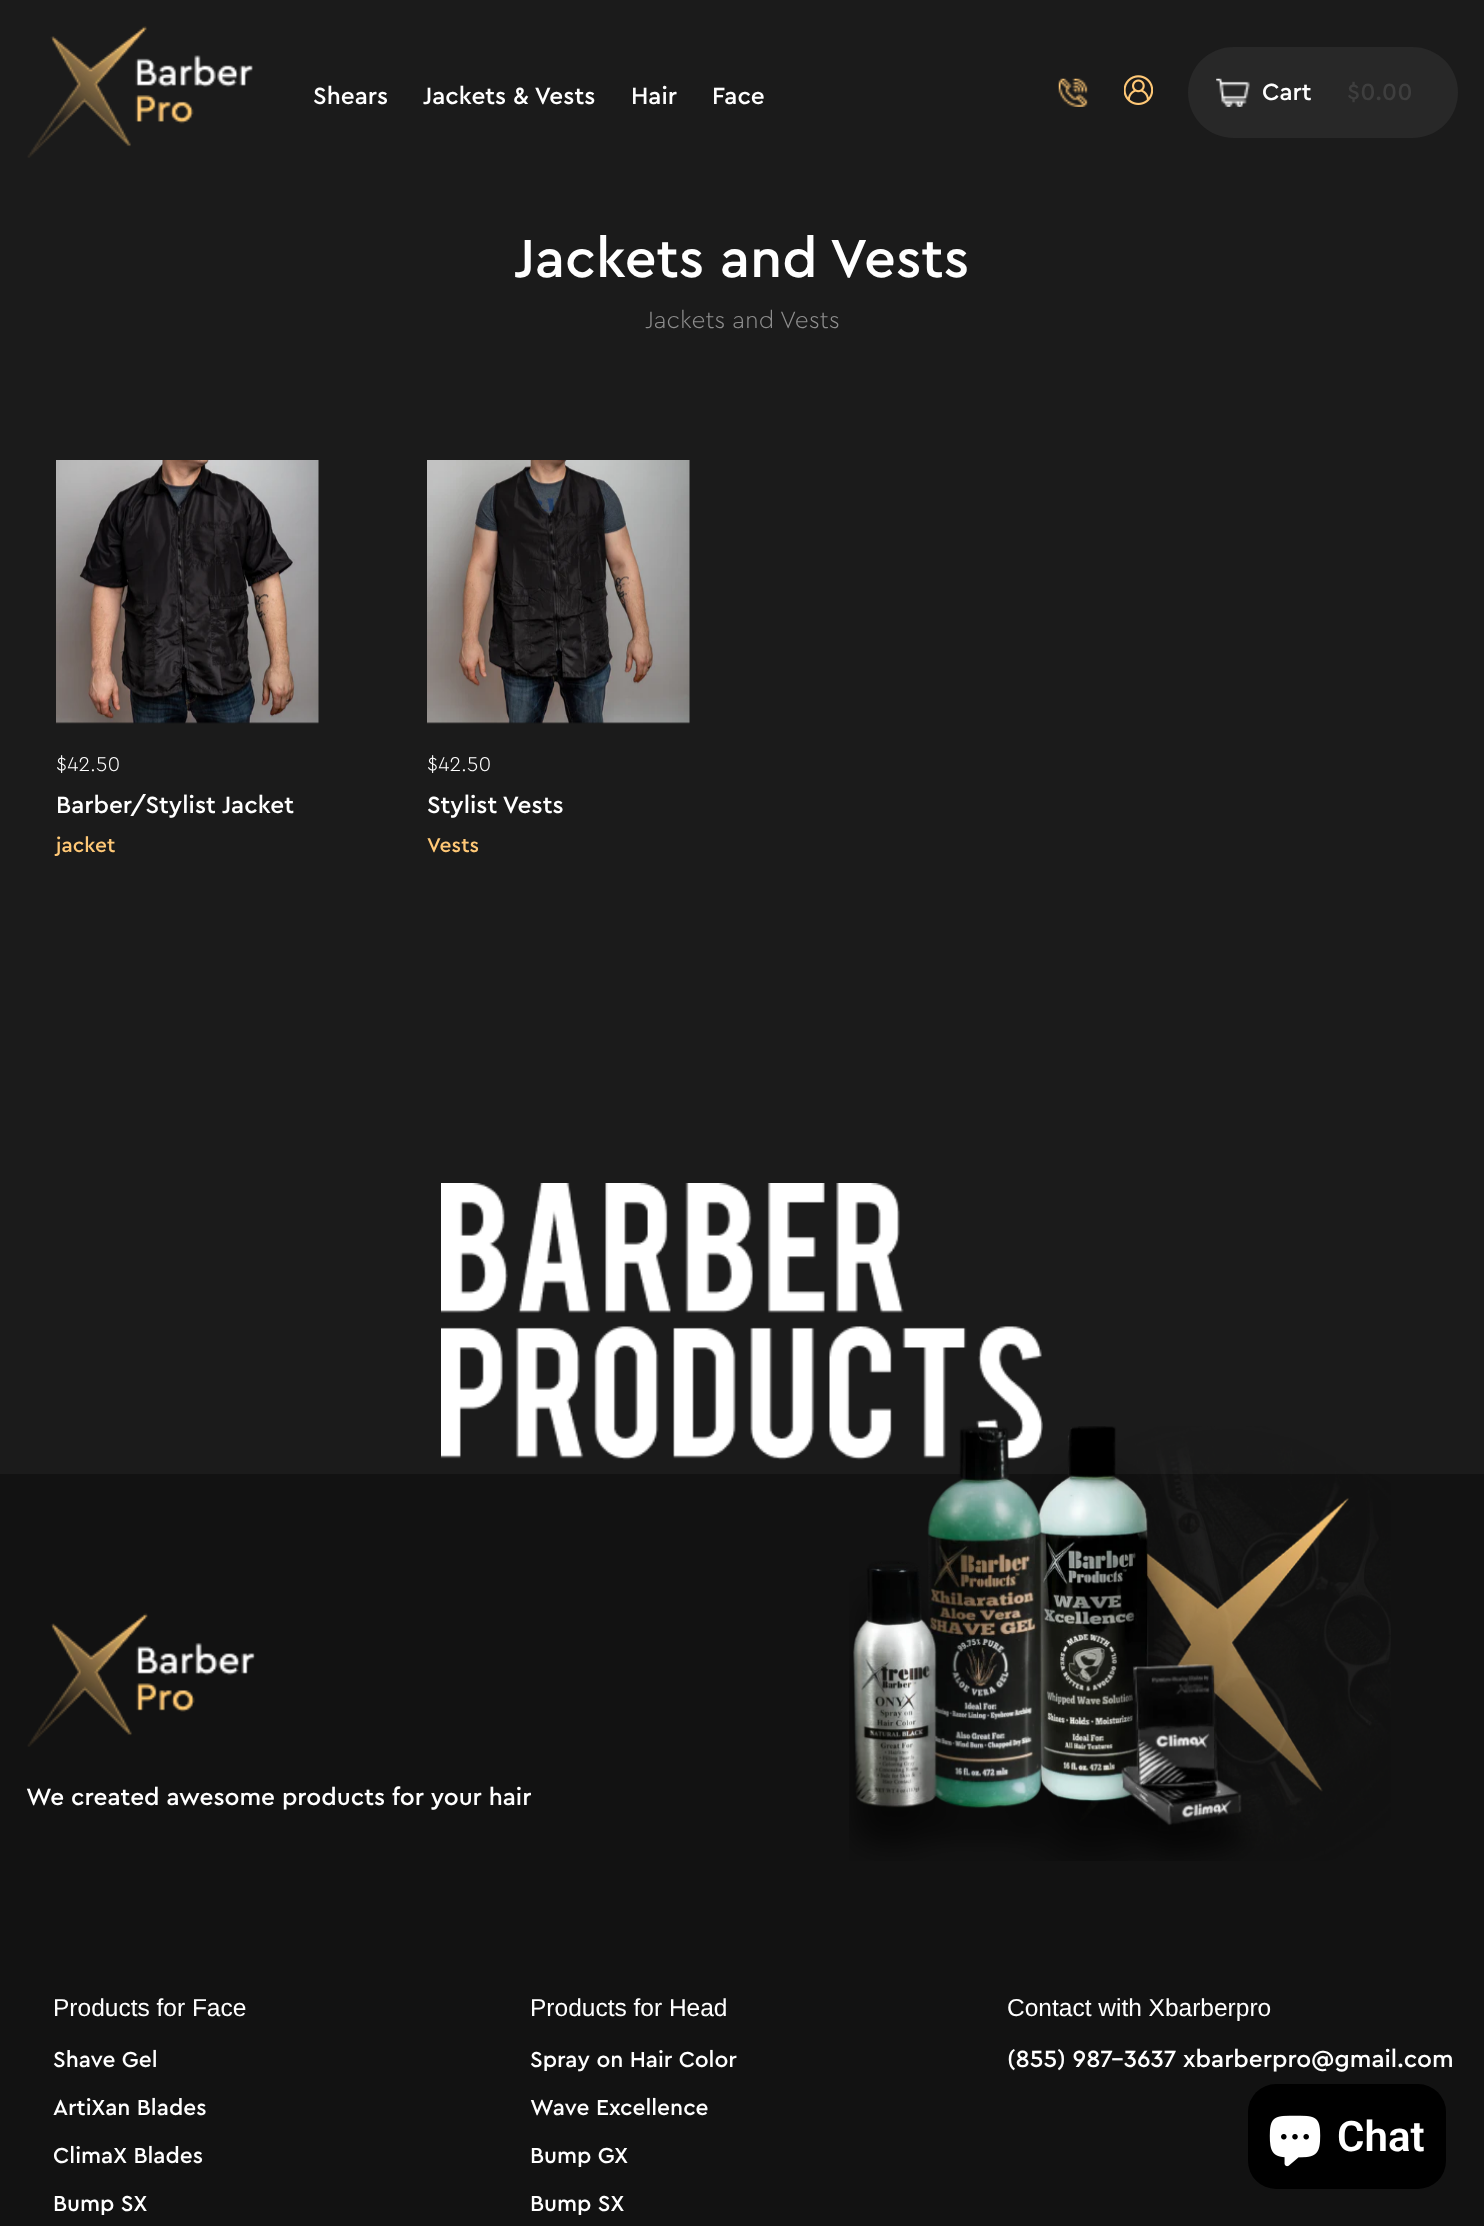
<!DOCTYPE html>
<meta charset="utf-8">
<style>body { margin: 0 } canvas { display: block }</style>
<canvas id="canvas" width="1484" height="2226"></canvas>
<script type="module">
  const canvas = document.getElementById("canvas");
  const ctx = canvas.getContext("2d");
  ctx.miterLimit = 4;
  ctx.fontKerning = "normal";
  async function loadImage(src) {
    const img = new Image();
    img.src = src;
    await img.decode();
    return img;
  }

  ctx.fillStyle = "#1b1b1b";
  ctx.fillRect(0, 0, 1484, 2226);
  ctx.drawImage(await loadImage("img1.png"), 27, 26, 226, 132);
  ctx.font = "500 24.5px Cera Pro";
  ctx.fillStyle = "#ffffff";
  ctx.fillText("Shears", 313, 104);
  ctx.fillText("Jackets & Vests", 423, 104);
  ctx.fillText("Hair", 631, 104);
  ctx.fillText("Face", 712, 104);
  ctx.drawImage(await loadImage("img2.png"), 1058, 78, 30, 29);
  ctx.drawImage(await loadImage("img3.png"), 1124, 75, 29, 30);
  ctx.fillStyle = "#282828";
  ctx.beginPath();
  ctx.roundRect(1188, 47, 270, 91, 45.5);
  ctx.fill();
  ctx.drawImage(await loadImage("img4.png"), 1216, 78, 34, 29);
  ctx.fillStyle = "#ffffff";
  ctx.fillText("Cart", 1262, 100);
  ctx.fillStyle = "#3e3e3e";
  ctx.fillText("$0.00", 1347, 100);
  ctx.font = "500 56px Cera Pro";
  ctx.fillStyle = "#ffffff";
  ctx.fillText("Jackets and Vests", 514, 277);
  ctx.font = "300 24.5px Cera Pro";
  ctx.fillStyle = "#8d8d8d";
  ctx.fillText("Jackets and Vests", 645, 328);
  ctx.drawImage(await loadImage("img5.png"), 56, 460, 263, 264);
  ctx.font = "300 21px Cera Pro";
  ctx.fillStyle = "#ffffff";
  ctx.fillText("$42.50", 56, 771);
  ctx.font = "500 24.5px Cera Pro";
  ctx.fillText("Barber/Stylist Jacket", 56, 813);
  ctx.font = "500 21px Cera Pro";
  ctx.fillStyle = "#ffc876";
  ctx.fillText("jacket", 56, 852);
  ctx.drawImage(await loadImage("img6.png"), 427, 460, 263, 264);
  ctx.font = "300 21px Cera Pro";
  ctx.fillStyle = "#ffffff";
  ctx.fillText("$42.50", 427, 771);
  ctx.font = "500 24.5px Cera Pro";
  ctx.fillText("Stylist Vests", 427, 813);
  ctx.font = "500 21px Cera Pro";
  ctx.fillStyle = "#ffc876";
  ctx.fillText("Vests", 427, 852);
  ctx.drawImage(await loadImage("img7.png"), 441, 1183, 602, 277);
  ctx.fillStyle = "#121212";
  ctx.fillRect(0, 1474, 1484, 752);
  ctx.drawImage(await loadImage("img8.png"), 27, 1613, 228, 134);
  ctx.font = "500 24.5px Cera Pro";
  ctx.fillStyle = "#ffffff";
  ctx.fillText("We created awesome products for your hair", 26, 1805);
  ctx.drawImage(await loadImage("img9.png"), 849, 1426, 542, 435);
  ctx.font = "24.5px Liberation Sans";
  ctx.fillText("Products for Face", 53, 2016);
  ctx.font = "500 22.75px Cera Pro";
  ctx.fillText("Shave Gel", 53, 2067);
  ctx.fillText("ArtiXan Blades", 53, 2115);
  ctx.fillText("ClimaX Blades", 53, 2163);
  ctx.fillText("Bump SX", 53, 2211);
  ctx.font = "24.5px Liberation Sans";
  ctx.fillText("Products for Head", 530, 2016);
  ctx.font = "500 22.75px Cera Pro";
  ctx.fillText("Spray on Hair Color", 530, 2067);
  ctx.fillText("Wave Excellence", 530, 2115);
  ctx.fillText("Bump GX", 530, 2163);
  ctx.fillText("Bump SX", 530, 2211);
  ctx.font = "24.5px Liberation Sans";
  ctx.fillText("Contact with Xbarberpro", 1007, 2016);
  ctx.font = "500 24.5px Cera Pro";
  ctx.fillText("(855) 987-3637", 1007, 2067);
  ctx.fillText("xbarberpro@gmail.com", 1183, 2067);
  ctx.fillStyle = "#000000";
  ctx.beginPath();
  ctx.roundRect(1248, 2084, 198, 105, 28);
  ctx.fill();
  ctx.drawImage(await loadImage("img10.png"), 1269, 2115, 52, 52);
  ctx.font = "600 42px Roboto";
  ctx.fillStyle = "#ffffff";
  ctx.fillText("Chat", 1337, 2151);
</script>
